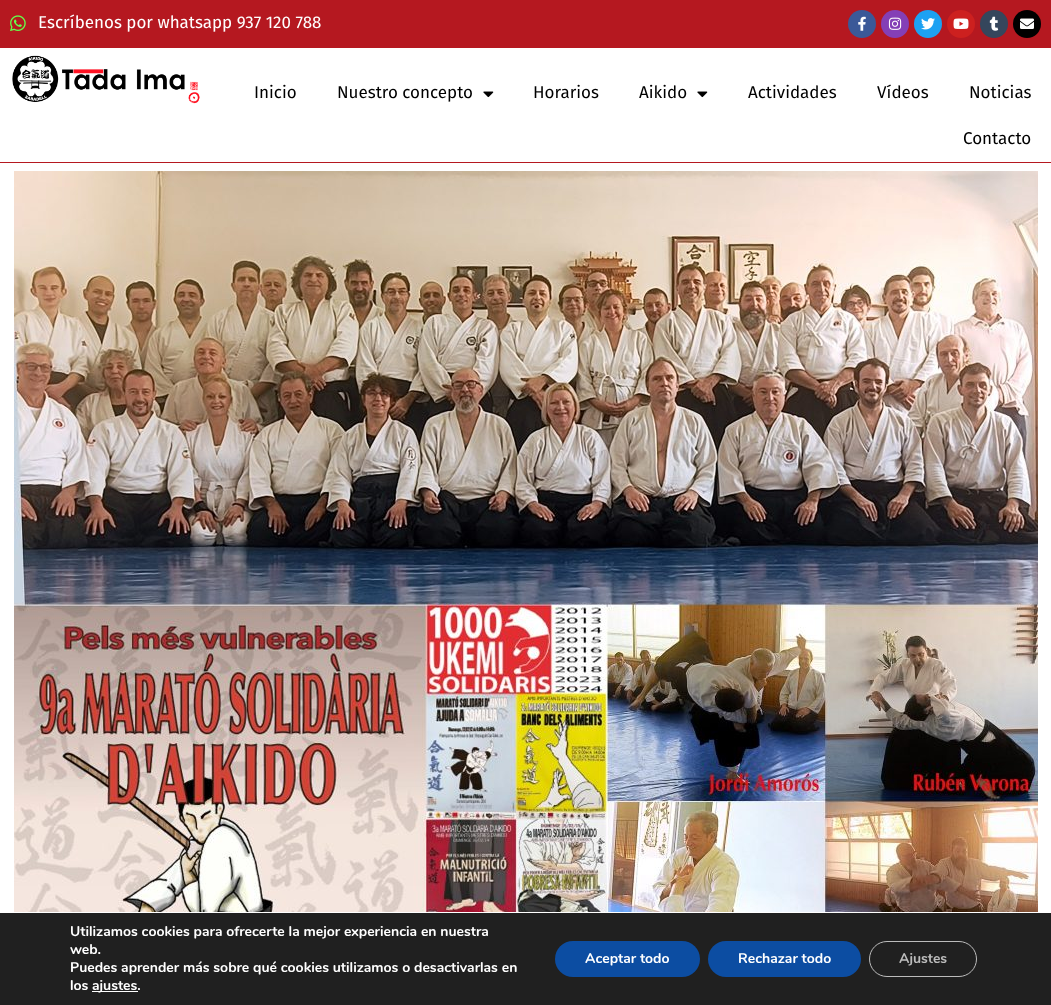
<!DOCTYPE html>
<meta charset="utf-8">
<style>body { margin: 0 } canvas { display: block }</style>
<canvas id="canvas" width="1051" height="1005"></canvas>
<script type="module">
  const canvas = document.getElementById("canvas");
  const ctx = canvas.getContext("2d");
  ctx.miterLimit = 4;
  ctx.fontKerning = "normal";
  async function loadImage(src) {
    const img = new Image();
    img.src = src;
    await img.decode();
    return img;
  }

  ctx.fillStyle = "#ffffff";
  ctx.fillRect(0, 0, 1051, 1005);
  ctx.fillStyle = "#b51820";
  ctx.fillRect(0, 0, 1051, 48);
  ctx.drawImage(await loadImage("img1.png"), 10, 15, 16, 17);
  ctx.font = "17px Fira Sans";
  ctx.fillStyle = "#ffffff";
  ctx.fillText("Escríbenos por whatsapp 937 120 788", 38, 28);
  ctx.fillStyle = "#3b5998";
  ctx.beginPath();
  ctx.arc(862, 24, 14, 0, Math.PI * 2);
  ctx.fill();
  ctx.drawImage(await loadImage("img2.png"), 858, 16, 8, 15);
  ctx.fillStyle = "#843fb6";
  ctx.beginPath();
  ctx.arc(895, 24, 14, 0, Math.PI * 2);
  ctx.fill();
  ctx.drawImage(await loadImage("img3.png"), 888, 17, 14, 13);
  ctx.fillStyle = "#1da1f2";
  ctx.beginPath();
  ctx.arc(928, 24, 14, 0, Math.PI * 2);
  ctx.fill();
  ctx.drawImage(await loadImage("img4.png"), 921, 18, 14, 12);
  ctx.fillStyle = "#cd201f";
  ctx.beginPath();
  ctx.arc(961, 24, 14, 0, Math.PI * 2);
  ctx.fill();
  ctx.drawImage(await loadImage("img5.png"), 953, 18, 16, 11);
  ctx.fillStyle = "#35465c";
  ctx.beginPath();
  ctx.arc(994, 24, 14, 0, Math.PI * 2);
  ctx.fill();
  ctx.drawImage(await loadImage("img6.png"), 989, 16, 10, 15);
  ctx.fillStyle = "#000000";
  ctx.beginPath();
  ctx.arc(1027, 24, 14, 0, Math.PI * 2);
  ctx.fill();
  ctx.drawImage(await loadImage("img7.png"), 1020, 18, 14, 11);
  ctx.fillStyle = "#b51820";
  ctx.fillRect(0, 162, 1051, 1);
  ctx.drawImage(await loadImage("img8.png"), 12, 55, 188, 49);
  ctx.fillStyle = "#000000";
  ctx.fillText("Inicio", 254, 98);
  ctx.fillText("Nuestro concepto", 337, 98);
  ctx.drawImage(await loadImage("img9.png"), 483, 91, 11, 7);
  ctx.fillText("Horarios", 533, 98);
  ctx.fillText("Aikido", 639, 98);
  ctx.drawImage(await loadImage("img9.png"), 697, 91, 11, 7);
  ctx.fillText("Actividades", 748, 98);
  ctx.fillText("Vídeos", 877, 98);
  ctx.fillText("Noticias", 969, 98);
  ctx.fillText("Contacto", 963, 144);
  ctx.drawImage(await loadImage("img10.png"), 14, 171, 1024, 741);
  ctx.fillStyle = "#202020";
  ctx.fillRect(0, 913, 1051, 92);
  ctx.font = "bold 14px Nunito";
  ctx.fillStyle = "#ffffff";
  ctx.fillText("Utilizamos cookies para ofrecerte la mejor experiencia en nuestra", 70, 936);
  ctx.fillText("web.", 70, 954);
  ctx.fillText("Puedes aprender más sobre qué cookies utilizamos o desactivarlas en", 70, 972);
  ctx.fillText("los", 70, 990);
  ctx.fillRect(92, 991, 46, 1);
  ctx.fillText("ajustes.", 92, 990);
  ctx.fillStyle = "#0c4da2";
  ctx.beginPath();
  ctx.roundRect(555, 941, 145, 36, 18);
  ctx.fill();
  ctx.fillStyle = "#ffffff";
  ctx.fillText("Aceptar todo", 585, 963);
  ctx.fillStyle = "#0c4da2";
  ctx.beginPath();
  ctx.roundRect(708, 941, 153, 36, 18);
  ctx.fill();
  ctx.fillStyle = "#ffffff";
  ctx.fillText("Rechazar todo", 738, 963);
  ctx.beginPath();
  ctx.roundRect(869.5, 941.5, 107, 35, 17.5);
  ctx.strokeStyle = "#bcbcbc";
  ctx.stroke();
  ctx.fillStyle = "#bcbcbc";
  ctx.fillText("Ajustes", 899, 963);
</script>
